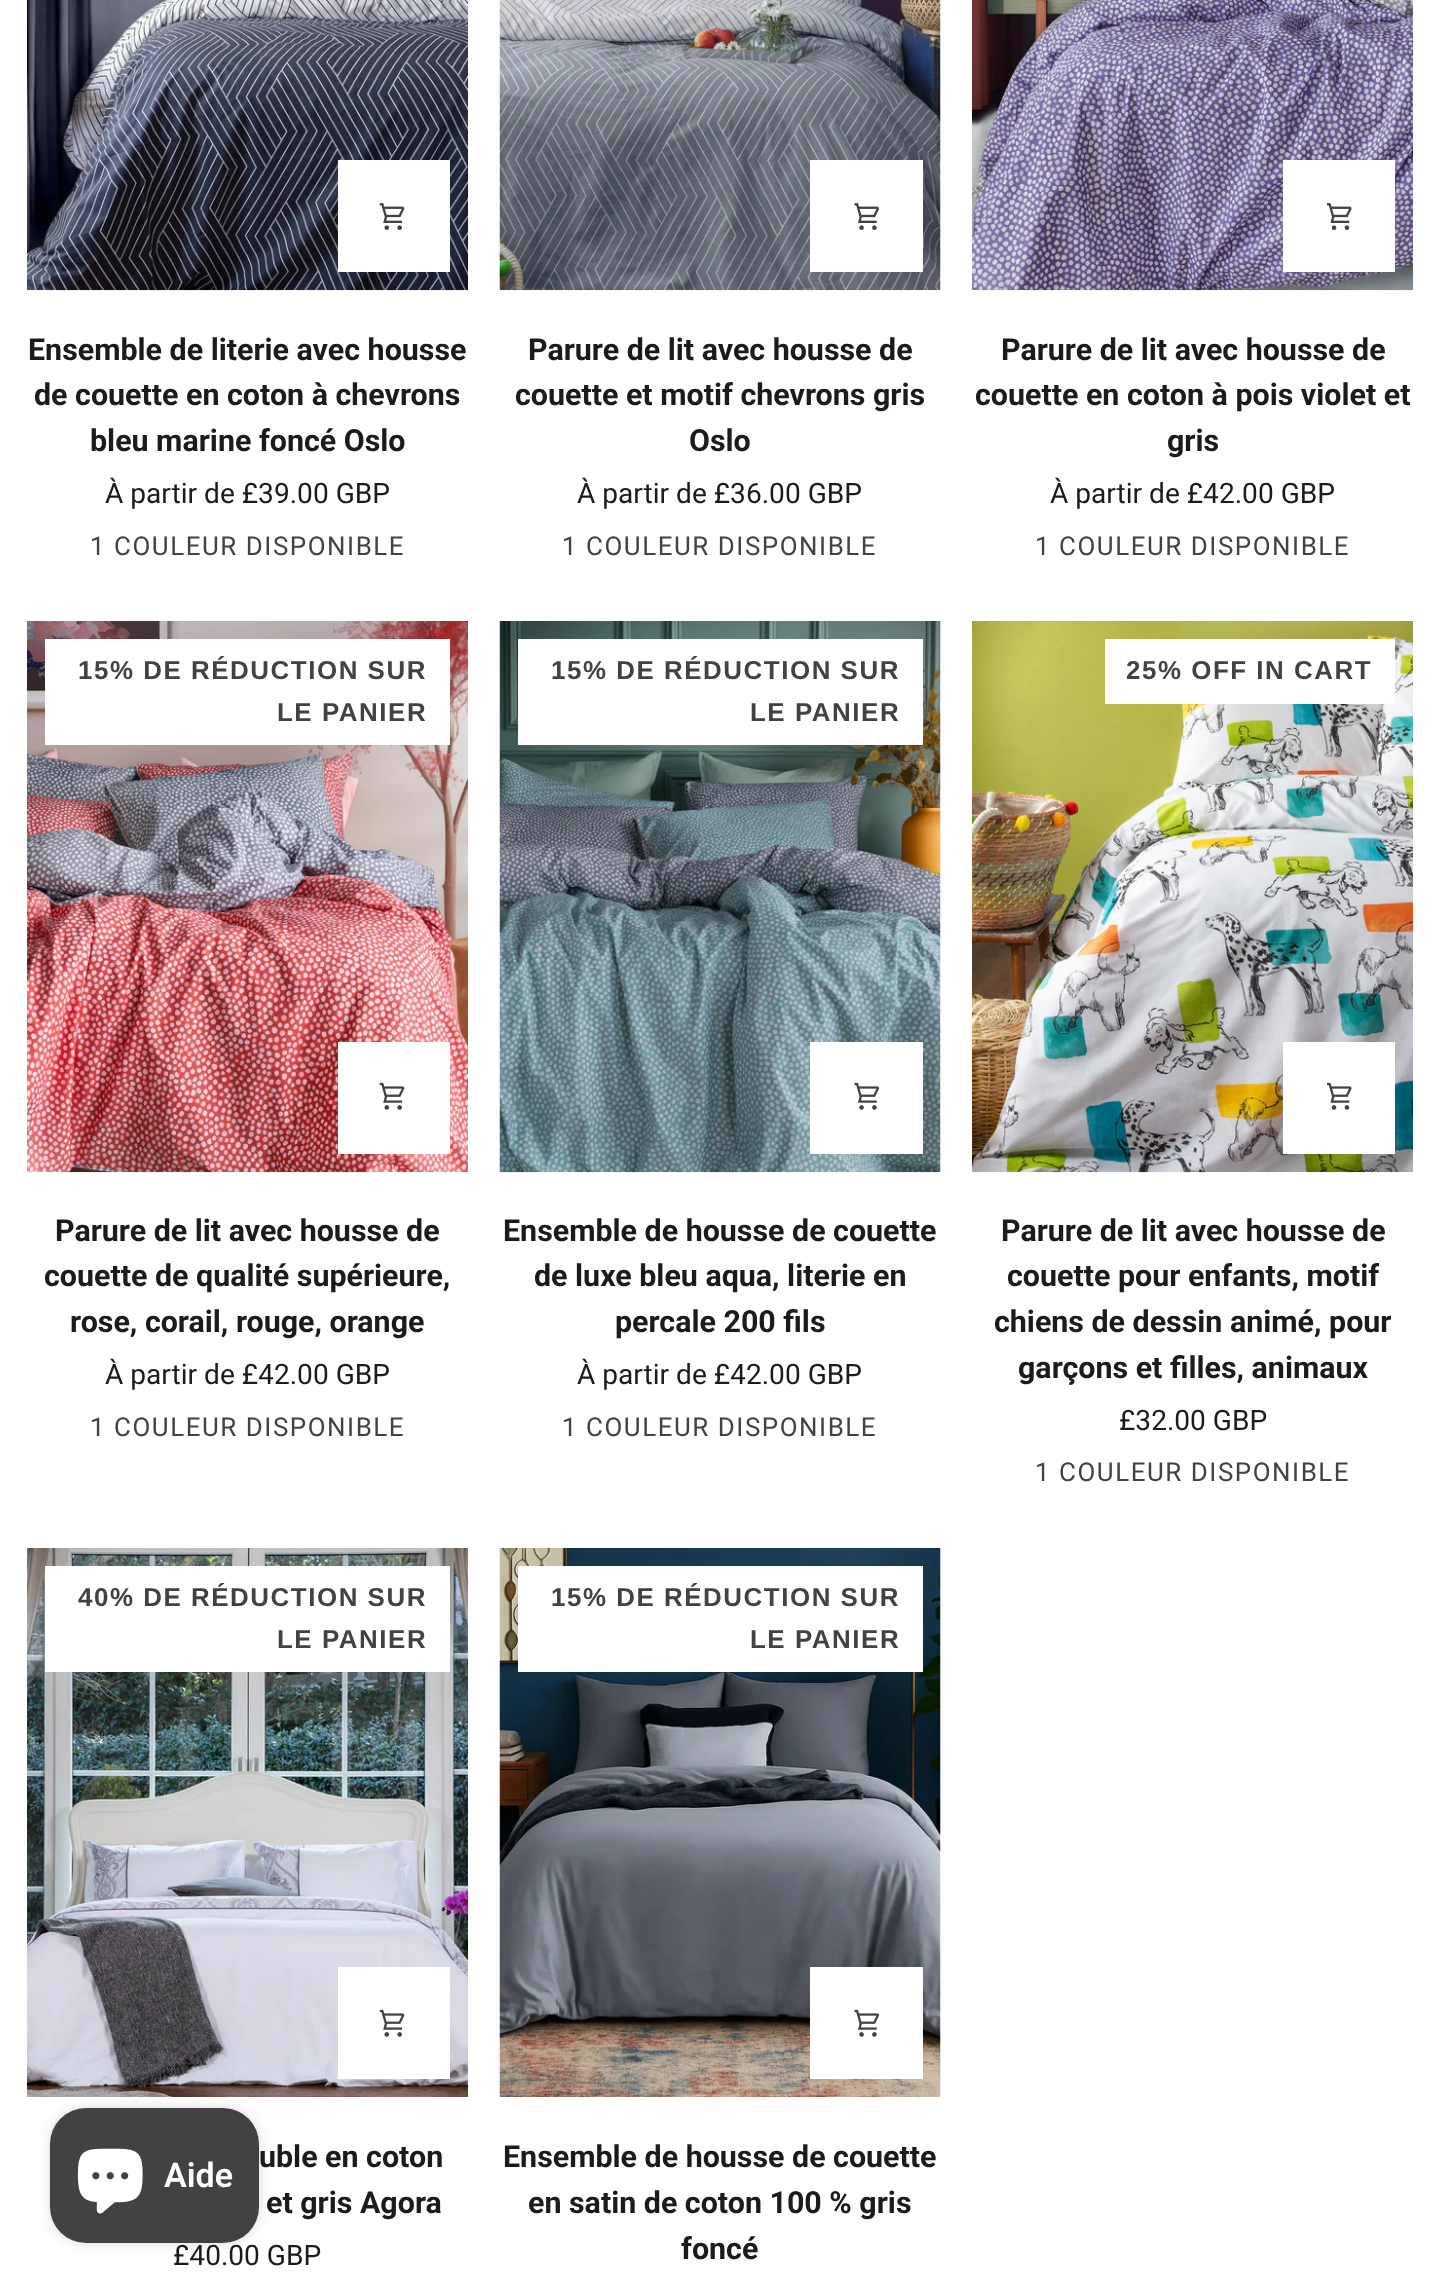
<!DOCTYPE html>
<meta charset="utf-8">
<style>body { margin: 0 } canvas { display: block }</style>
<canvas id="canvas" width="1439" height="2289"></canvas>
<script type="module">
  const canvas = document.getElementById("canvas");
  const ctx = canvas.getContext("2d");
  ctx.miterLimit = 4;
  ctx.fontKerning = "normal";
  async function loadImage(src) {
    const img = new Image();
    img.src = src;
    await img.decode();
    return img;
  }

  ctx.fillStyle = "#ffffff";
  ctx.fillRect(0, 0, 1439, 2289);
  ctx.drawImage(await loadImage("img1.png"), 27, 0, 441, 291);
  ctx.fillRect(338, 160, 112, 112);
  ctx.drawImage(await loadImage("img2.png"), 379, 203, 26, 27);
  ctx.font = "bold 30.4px Roboto";
  ctx.fillStyle = "#1f1919";
  ctx.fillText("Ensemble de literie avec housse", 28, 360);
  ctx.fillText("de couette en coton à chevrons", 34, 405);
  ctx.fillText("bleu marine foncé Oslo", 90, 451);
  ctx.font = "28.1px Roboto";
  ctx.fillText("À partir de £39.00 GBP", 105, 503);
  ctx.letterSpacing = "1.55px";
  ctx.font = "25.9px Roboto";
  ctx.fillStyle = "#424242";
  ctx.fillText("1 COULEUR DISPONIBLE", 90, 555);
  ctx.drawImage(await loadImage("img3.png"), 499, 0, 442, 291);
  ctx.fillStyle = "#ffffff";
  ctx.fillRect(810, 160, 113, 112);
  ctx.drawImage(await loadImage("img4.png"), 854, 203, 25, 27);
  ctx.letterSpacing = "0px";
  ctx.font = "bold 30.4px Roboto";
  ctx.fillStyle = "#1f1919";
  ctx.fillText("Parure de lit avec housse de", 528, 360);
  ctx.fillText("couette et motif chevrons gris", 515, 405);
  ctx.fillText("Oslo", 689, 451);
  ctx.font = "28.1px Roboto";
  ctx.fillText("À partir de £36.00 GBP", 577, 503);
  ctx.letterSpacing = "1.55px";
  ctx.font = "25.9px Roboto";
  ctx.fillStyle = "#424242";
  ctx.fillText("1 COULEUR DISPONIBLE", 562, 555);
  ctx.drawImage(await loadImage("img5.png"), 972, 0, 441, 291);
  ctx.fillStyle = "#ffffff";
  ctx.fillRect(1283, 160, 112, 112);
  ctx.drawImage(await loadImage("img6.png"), 1327, 203, 25, 27);
  ctx.letterSpacing = "0px";
  ctx.font = "bold 30.4px Roboto";
  ctx.fillStyle = "#1f1919";
  ctx.fillText("Parure de lit avec housse de", 1001, 360);
  ctx.fillText("couette en coton à pois violet et", 975, 405);
  ctx.fillText("gris", 1167, 451);
  ctx.font = "28.1px Roboto";
  ctx.fillText("À partir de £42.00 GBP", 1050, 503);
  ctx.letterSpacing = "1.55px";
  ctx.font = "25.9px Roboto";
  ctx.fillStyle = "#424242";
  ctx.fillText("1 COULEUR DISPONIBLE", 1035, 555);
  ctx.drawImage(await loadImage("img7.png"), 27, 621, 441, 552);
  ctx.fillStyle = "#ffffff";
  ctx.fillRect(45, 639, 405, 106);
  ctx.font = "bold 25.9px Liberation Sans";
  ctx.fillStyle = "#424242";
  ctx.fillText("15% DE RÉDUCTION SUR", 78, 679);
  ctx.fillText("LE PANIER", 277, 721);
  ctx.fillStyle = "#ffffff";
  ctx.fillRect(338, 1042, 112, 112);
  ctx.drawImage(await loadImage("img8.png"), 379, 1082, 26, 28);
  ctx.letterSpacing = "0px";
  ctx.font = "bold 30.4px Roboto";
  ctx.fillStyle = "#1f1919";
  ctx.fillText("Parure de lit avec housse de", 55, 1241);
  ctx.fillText("couette de qualité supérieure,", 44, 1286);
  ctx.fillText("rose, corail, rouge, orange", 70, 1332);
  ctx.font = "28.1px Roboto";
  ctx.fillText("À partir de £42.00 GBP", 105, 1384);
  ctx.letterSpacing = "1.55px";
  ctx.font = "25.9px Roboto";
  ctx.fillStyle = "#424242";
  ctx.fillText("1 COULEUR DISPONIBLE", 90, 1436);
  ctx.drawImage(await loadImage("img9.png"), 499, 621, 442, 552);
  ctx.fillStyle = "#ffffff";
  ctx.fillRect(518, 639, 405, 106);
  ctx.font = "bold 25.9px Liberation Sans";
  ctx.fillStyle = "#424242";
  ctx.fillText("15% DE RÉDUCTION SUR", 551, 679);
  ctx.fillText("LE PANIER", 750, 721);
  ctx.fillStyle = "#ffffff";
  ctx.fillRect(810, 1042, 113, 112);
  ctx.drawImage(await loadImage("img10.png"), 854, 1082, 25, 28);
  ctx.letterSpacing = "0px";
  ctx.font = "bold 30.4px Roboto";
  ctx.fillStyle = "#1f1919";
  ctx.fillText("Ensemble de housse de couette", 503, 1241);
  ctx.fillText("de luxe bleu aqua, literie en", 534, 1286);
  ctx.fillText("percale 200 fils", 615, 1332);
  ctx.font = "28.1px Roboto";
  ctx.fillText("À partir de £42.00 GBP", 577, 1384);
  ctx.letterSpacing = "1.55px";
  ctx.font = "25.9px Roboto";
  ctx.fillStyle = "#424242";
  ctx.fillText("1 COULEUR DISPONIBLE", 562, 1436);
  ctx.drawImage(await loadImage("img11.png"), 972, 621, 441, 552);
  ctx.fillStyle = "#ffffff";
  ctx.fillRect(1105, 639, 290, 65);
  ctx.font = "bold 25.9px Liberation Sans";
  ctx.fillStyle = "#424242";
  ctx.fillText("25% OFF IN CART", 1126, 679);
  ctx.fillStyle = "#ffffff";
  ctx.fillRect(1283, 1042, 112, 112);
  ctx.drawImage(await loadImage("img12.png"), 1327, 1082, 25, 28);
  ctx.letterSpacing = "0px";
  ctx.font = "bold 30.4px Roboto";
  ctx.fillStyle = "#1f1919";
  ctx.fillText("Parure de lit avec housse de", 1001, 1241);
  ctx.fillText("couette pour enfants, motif", 1007, 1286);
  ctx.fillText("chiens de dessin animé, pour", 994, 1332);
  ctx.fillText("garçons et filles, animaux", 1018, 1378);
  ctx.font = "28.1px Roboto";
  ctx.fillText("£32.00 GBP", 1119, 1430);
  ctx.letterSpacing = "1.55px";
  ctx.font = "25.9px Roboto";
  ctx.fillStyle = "#424242";
  ctx.fillText("1 COULEUR DISPONIBLE", 1035, 1481);
  ctx.drawImage(await loadImage("img13.png"), 27, 1548, 441, 549);
  ctx.fillStyle = "#ffffff";
  ctx.fillRect(45, 1566, 405, 106);
  ctx.font = "bold 25.9px Liberation Sans";
  ctx.fillStyle = "#424242";
  ctx.fillText("40% DE RÉDUCTION SUR", 78, 1606);
  ctx.fillText("LE PANIER", 277, 1648);
  ctx.fillStyle = "#ffffff";
  ctx.fillRect(338, 1967, 112, 112);
  ctx.drawImage(await loadImage("img8.png"), 379, 2009, 26, 28);
  ctx.letterSpacing = "0px";
  ctx.font = "bold 30.4px Roboto";
  ctx.fillStyle = "#1f1919";
  ctx.fillText("uble en coton", 259, 2167);
  ctx.fillText("et gris Agora", 266, 2213);
  ctx.font = "28.1px Roboto";
  ctx.fillText("£40.00 GBP", 173, 2265);
  ctx.drawImage(await loadImage("img14.png"), 499, 1548, 442, 549);
  ctx.fillStyle = "#ffffff";
  ctx.fillRect(518, 1566, 405, 106);
  ctx.letterSpacing = "1.55px";
  ctx.font = "bold 25.9px Liberation Sans";
  ctx.fillStyle = "#424242";
  ctx.fillText("15% DE RÉDUCTION SUR", 551, 1606);
  ctx.fillText("LE PANIER", 750, 1648);
  ctx.fillStyle = "#ffffff";
  ctx.fillRect(810, 1967, 113, 112);
  ctx.drawImage(await loadImage("img10.png"), 854, 2009, 25, 28);
  ctx.letterSpacing = "0px";
  ctx.font = "bold 30.4px Roboto";
  ctx.fillStyle = "#1f1919";
  ctx.fillText("Ensemble de housse de couette", 503, 2167);
  ctx.fillText("en satin de coton 100 % gris", 528, 2213);
  ctx.fillText("foncé", 681, 2259);
  ctx.fillStyle = "rgba(0, 0, 0, 0.15)";
  ctx.filter = "blur(5.5px)";
  ctx.beginPath();
  ctx.roundRect(50, 2108, 209, 135, 36);
  ctx.fill();
  ctx.filter = "none";
  ctx.fillStyle = "#424242";
  ctx.beginPath();
  ctx.roundRect(50, 2108, 209, 135, 36);
  ctx.fill();
  ctx.drawImage(await loadImage("img15.png"), 77, 2148, 66, 66);
  ctx.font = "600 34px Roboto";
  ctx.fillStyle = "#ffffff";
  ctx.fillText("Aide", 164, 2187);
</script>
